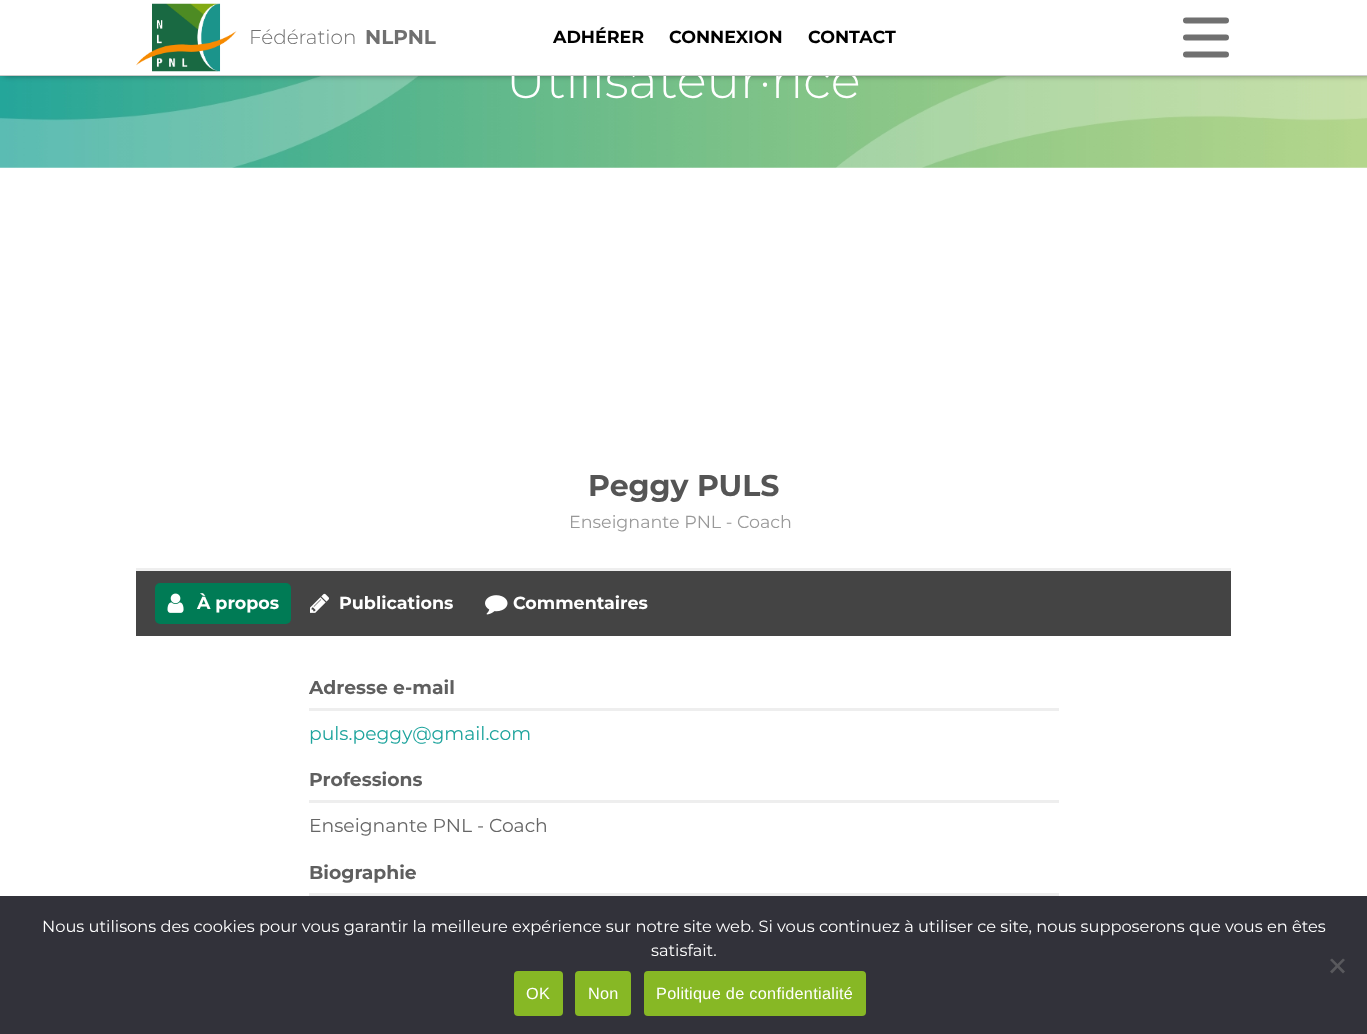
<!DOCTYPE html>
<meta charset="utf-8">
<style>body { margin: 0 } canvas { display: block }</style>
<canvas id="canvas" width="1367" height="1034"></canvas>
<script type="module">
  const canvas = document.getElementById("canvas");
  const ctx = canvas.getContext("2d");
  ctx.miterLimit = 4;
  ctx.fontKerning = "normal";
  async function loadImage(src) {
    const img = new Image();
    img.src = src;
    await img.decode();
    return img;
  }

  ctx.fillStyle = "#ffffff";
  ctx.fillRect(0, 0, 1367, 1034);
  ctx.drawImage(await loadImage("img2.png"), 0, 76, 1367, 92);
  ctx.fillStyle = "rgba(0, 0, 0, 0.5)";
  ctx.filter = "blur(3px)";
  ctx.beginPath();
  ctx.rect(4, 0, 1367, 75);
  ctx.fill();
  ctx.filter = "none";
  ctx.fillStyle = "#ffffff";
  ctx.fillRect(0, 0, 1367, 75);
  ctx.font = "300 50px Montserrat";
  ctx.fillText("Utilisateur·rice", 506, 98);
  ctx.fillStyle = "#cccccc";
  ctx.fillRect(0, 75, 1367, 1);
  ctx.drawImage(await loadImage("img1.png"), 136, 3, 101, 69);
  ctx.font = "300 20px Montserrat";
  ctx.fillStyle = "#707070";
  ctx.fillText("Fédération", 249, 44);
  ctx.font = "bold 20px Montserrat";
  ctx.fillText("NLPNL", 365, 44);
  ctx.font = "bold 17.5px Montserrat";
  ctx.fillStyle = "#000000";
  ctx.fillText("ADHÉRER", 553, 43);
  ctx.fillText("CONNEXION", 669, 43);
  ctx.fillText("CONTACT", 808, 43);
  ctx.beginPath();
  ctx.moveTo(1186, 20.5);
  ctx.lineTo(1226, 20.5);
  ctx.moveTo(1186, 37.5);
  ctx.lineTo(1226, 37.5);
  ctx.moveTo(1186, 54.5);
  ctx.lineTo(1226, 54.5);
  ctx.strokeStyle = "#707070";
  ctx.lineWidth = 6;
  ctx.lineCap = "round";
  ctx.stroke();
  ctx.fillStyle = "#eeeeee";
  ctx.fillRect(136, 568, 1095, 3);
  ctx.font = "bold 30px Montserrat";
  ctx.fillStyle = "#555555";
  ctx.fillText("Peggy PULS", 588, 496);
  ctx.font = "17.5px Montserrat";
  ctx.fillStyle = "#999999";
  ctx.fillText("Enseignante PNL - Coach", 569, 528);
  ctx.fillStyle = "#444444";
  ctx.fillRect(136, 571, 1095, 65);
  ctx.fillStyle = "#007b55";
  ctx.beginPath();
  ctx.roundRect(155, 583, 136, 41, 5);
  ctx.fill();
  ctx.drawImage(await loadImage("img3.png"), 167, 593, 17, 20);
  ctx.font = "bold 17.5px Montserrat";
  ctx.fillStyle = "#ffffff";
  ctx.fillText("À propos", 197, 609);
  ctx.drawImage(await loadImage("img4.png"), 310, 593, 19, 20);
  ctx.fillText("Publications", 339, 609);
  ctx.drawImage(await loadImage("img5.png"), 485, 595, 23, 20);
  ctx.fillText("Commentaires", 513, 609);
  ctx.fillStyle = "#eeeeee";
  ctx.fillRect(309, 708, 750, 3);
  ctx.font = "bold 18.75px Montserrat";
  ctx.fillStyle = "#5f5f5f";
  ctx.fillText("Adresse e-mail", 309, 694);
  ctx.font = "18.75px Montserrat";
  ctx.fillStyle = "#1ea49d";
  ctx.fillText("puls.peggy@gmail.com", 309, 740);
  ctx.fillStyle = "#eeeeee";
  ctx.fillRect(309, 800, 750, 3);
  ctx.font = "bold 18.75px Montserrat";
  ctx.fillStyle = "#5f5f5f";
  ctx.fillText("Professions", 309, 786);
  ctx.font = "18.75px Montserrat";
  ctx.fillStyle = "#666666";
  ctx.fillText("Enseignante PNL - Coach", 309, 832);
  ctx.fillStyle = "#eeeeee";
  ctx.fillRect(309, 893, 750, 3);
  ctx.font = "bold 18.75px Montserrat";
  ctx.fillStyle = "#5f5f5f";
  ctx.fillText("Biographie", 309, 879);
  ctx.fillStyle = "#32323a";
  ctx.fillRect(0, 896, 1367, 138);
  ctx.font = "16.25px Montserrat";
  ctx.fillStyle = "#ffffff";
  ctx.fillText("Nous utilisons des cookies pour vous garantir la meilleure expérience sur notre site web. Si vous continuez à utiliser ce site, nous supposerons que vous en êtes", 42, 932);
  ctx.fillText("satisfait.", 651, 956);
  ctx.fillStyle = "#59595d";
  ctx.beginPath();
  ctx.moveTo(1343, 958.5);
  ctx.lineTo(1345, 960);
  ctx.lineTo(1332, 973.5);
  ctx.lineTo(1330, 971.5);
  ctx.closePath();
  ctx.fill();
  ctx.beginPath();
  ctx.moveTo(1330, 960);
  ctx.lineTo(1332, 958.5);
  ctx.lineTo(1345, 971.5);
  ctx.lineTo(1343, 973.5);
  ctx.closePath();
  ctx.fill();
  ctx.fillStyle = "#87b825";
  ctx.beginPath();
  ctx.roundRect(514, 971, 49, 45, 4);
  ctx.fill();
  ctx.letterSpacing = "0.3px";
  ctx.font = "16.25px Liberation Sans";
  ctx.fillStyle = "#ffffff";
  ctx.fillText("OK", 526, 999);
  ctx.fillStyle = "#87b825";
  ctx.beginPath();
  ctx.roundRect(575, 971, 56, 45, 4);
  ctx.fill();
  ctx.fillStyle = "#ffffff";
  ctx.fillText("Non", 588, 999);
  ctx.fillStyle = "#87b825";
  ctx.beginPath();
  ctx.roundRect(644, 971, 222, 45, 4);
  ctx.fill();
  ctx.fillStyle = "#ffffff";
  ctx.fillText("Politique de confidentialité", 656, 999);
</script>
